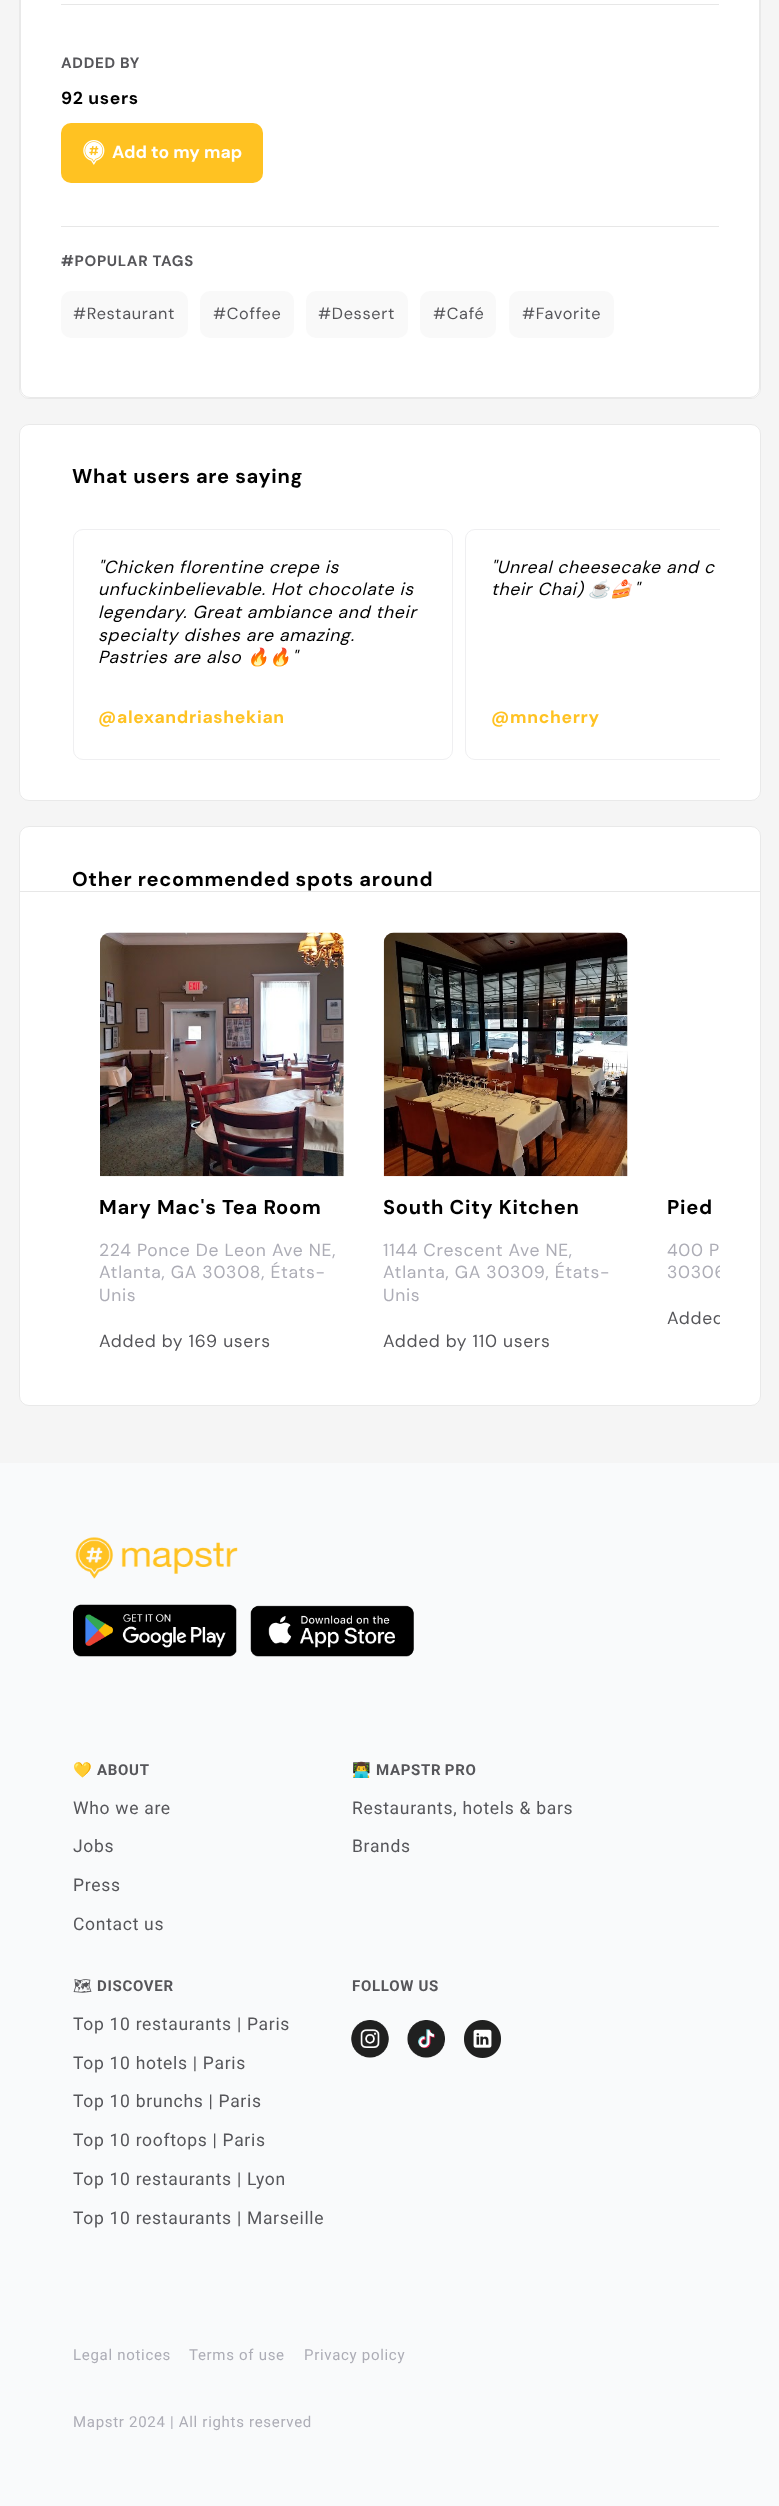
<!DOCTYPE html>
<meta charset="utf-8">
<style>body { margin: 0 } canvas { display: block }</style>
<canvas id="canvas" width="779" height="2506"></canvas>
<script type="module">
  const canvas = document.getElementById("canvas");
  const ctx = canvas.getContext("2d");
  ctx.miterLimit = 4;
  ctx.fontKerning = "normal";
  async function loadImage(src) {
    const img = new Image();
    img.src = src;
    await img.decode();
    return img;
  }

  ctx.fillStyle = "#f5f5f5";
  ctx.fillRect(0, 0, 779, 2506);
  ctx.fillStyle = "#ffffff";
  ctx.beginPath();
  ctx.roundRect(19, -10, 742, 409, 10);
  ctx.fill();
  ctx.beginPath();
  ctx.roundRect(19.5, -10.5, 741, 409, 9.5);
  ctx.strokeStyle = "rgba(211, 211, 211, 0.51)";
  ctx.stroke();
  ctx.beginPath();
  ctx.roundRect(20.5, -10.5, 739, 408, 9.5);
  ctx.fill();
  ctx.strokeStyle = "#e9e9e9";
  ctx.stroke();
  ctx.fillStyle = "#e7e7e7";
  ctx.fillRect(61, 4, 658, 1);
  ctx.letterSpacing = "0.7px";
  ctx.font = "bold 15px DM Sans";
  ctx.fillStyle = "#56565a";
  ctx.fillText("ADDED BY", 61, 68);
  ctx.font = "bold 17.5px DM Sans";
  ctx.fillStyle = "#000000";
  ctx.fillText("92 users", 61, 104);
  ctx.fillStyle = "#ffc222";
  ctx.beginPath();
  ctx.roundRect(61, 123, 202, 60, 10);
  ctx.fill();
  ctx.drawImage(await loadImage("img1.png"), 83, 140, 22, 25);
  ctx.letterSpacing = "0px";
  ctx.fillStyle = "#ffffff";
  ctx.fillText("Add to my map", 112, 158);
  ctx.fillStyle = "#e7e7e7";
  ctx.fillRect(61, 226, 658, 1);
  ctx.letterSpacing = "0.7px";
  ctx.font = "bold 15px DM Sans";
  ctx.fillStyle = "#56565a";
  ctx.fillText("#POPULAR TAGS", 61, 266);
  ctx.fillStyle = "#f9f9f9";
  ctx.beginPath();
  ctx.roundRect(61, 291, 127, 47, 10);
  ctx.fill();
  ctx.font = "16.25px DM Sans";
  ctx.fillStyle = "#56565a";
  ctx.fillText("#Restaurant", 73, 319);
  ctx.fillStyle = "#f9f9f9";
  ctx.beginPath();
  ctx.roundRect(200, 291, 94, 47, 10);
  ctx.fill();
  ctx.fillStyle = "#56565a";
  ctx.fillText("#Coffee", 213, 319);
  ctx.fillStyle = "#f9f9f9";
  ctx.beginPath();
  ctx.roundRect(306, 291, 102, 47, 10);
  ctx.fill();
  ctx.fillStyle = "#56565a";
  ctx.fillText("#Dessert", 318, 319);
  ctx.fillStyle = "#f9f9f9";
  ctx.beginPath();
  ctx.roundRect(420, 291, 76, 47, 10);
  ctx.fill();
  ctx.fillStyle = "#56565a";
  ctx.fillText("#Café", 433, 319);
  ctx.fillStyle = "#f9f9f9";
  ctx.beginPath();
  ctx.roundRect(509, 291, 105, 47, 10);
  ctx.fill();
  ctx.fillStyle = "#56565a";
  ctx.fillText("#Favorite", 522, 319);
  ctx.fillStyle = "#ffffff";
  ctx.beginPath();
  ctx.roundRect(19, 424, 742, 377, 10);
  ctx.fill();
  ctx.beginPath();
  ctx.roundRect(19.5, 424.5, 741, 376, 9.5);
  ctx.strokeStyle = "rgba(211, 211, 211, 0.51)";
  ctx.stroke();
  ctx.font = "bold 20px DM Sans";
  ctx.fillStyle = "#000000";
  ctx.fillText("What users are saying", 72, 483);
  ctx.beginPath();
  ctx.roundRect(73.5, 529.5, 379, 230, 9.5);
  ctx.strokeStyle = "#efeff1";
  ctx.stroke();
  ctx.font = "italic 17.5px DM Sans";
  ctx.fillText("\"Chicken florentine crepe is", 98, 573);
  ctx.fillText("unfuckinbelievable. Hot chocolate is", 98, 595);
  ctx.fillText("legendary. Great ambiance and their", 98, 618);
  ctx.fillText("specialty dishes are amazing.", 98, 641);
  ctx.fillText("Pastries are also", 98, 663);
  ctx.font = "italic 17.5px Noto Color Emoji";
  ctx.fillText("🔥🔥", 247, 663);
  ctx.font = "italic 17.5px DM Sans";
  ctx.fillText("\"", 292, 663);
  ctx.font = "bold 17.5px DM Sans";
  ctx.fillStyle = "#ffc222";
  ctx.fillText("@alexandriashekian", 98, 723);
  ctx.save();
  ctx.beginPath();
  ctx.rect(60, 529, 660, 231);
  ctx.clip();
  ctx.beginPath();
  ctx.roundRect(465.5, 529.5, 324, 230, 9.5);
  ctx.stroke();
  ctx.restore();
  ctx.font = "italic 17.5px DM Sans";
  ctx.fillStyle = "#000000";
  ctx.fillText("\"Unreal cheesecake and c", 491, 573);
  ctx.fillText("their Chai)", 491, 595);
  ctx.font = "italic 17.5px Noto Color Emoji";
  ctx.fillText("☕️🍰", 588, 595);
  ctx.font = "italic 17.5px DM Sans";
  ctx.fillText("\"", 634, 595);
  ctx.font = "bold 17.5px DM Sans";
  ctx.fillStyle = "#ffc222";
  ctx.fillText("@mncherry", 491, 723);
  ctx.fillStyle = "#ffffff";
  ctx.beginPath();
  ctx.roundRect(19, 826, 742, 580, 10);
  ctx.fill();
  ctx.beginPath();
  ctx.roundRect(19.5, 826.5, 741, 579, 9.5);
  ctx.strokeStyle = "rgba(211, 211, 211, 0.51)";
  ctx.stroke();
  ctx.font = "bold 20px DM Sans";
  ctx.fillStyle = "#000000";
  ctx.fillText("Other recommended spots around", 72, 886);
  ctx.fillStyle = "#e7e7e7";
  ctx.fillRect(20, 891, 740, 1);
  ctx.drawImage(await loadImage("img2.png"), 100, 932, 244, 245);
  ctx.fillStyle = "#000000";
  ctx.fillText("Mary Mac's Tea Room", 99, 1214);
  ctx.font = "17.5px DM Sans";
  ctx.fillStyle = "#adadb6";
  ctx.fillText("224 Ponce De Leon Ave NE,", 99, 1256);
  ctx.fillText("Atlanta, GA 30308, États-", 99, 1278);
  ctx.fillText("Unis", 99, 1301);
  ctx.fillStyle = "#56565a";
  ctx.fillText("Added by 169 users", 99, 1347);
  ctx.drawImage(await loadImage("img3.png"), 383, 932, 245, 245);
  ctx.font = "bold 20px DM Sans";
  ctx.fillStyle = "#000000";
  ctx.fillText("South City Kitchen", 383, 1214);
  ctx.font = "17.5px DM Sans";
  ctx.fillStyle = "#adadb6";
  ctx.fillText("1144 Crescent Ave NE,", 383, 1256);
  ctx.fillText("Atlanta, GA 30309, États-", 383, 1278);
  ctx.fillText("Unis", 383, 1301);
  ctx.fillStyle = "#56565a";
  ctx.fillText("Added by 110 users", 383, 1347);
  ctx.font = "bold 20px DM Sans";
  ctx.fillStyle = "#000000";
  ctx.fillText("Pied", 667, 1214);
  ctx.font = "17.5px DM Sans";
  ctx.fillStyle = "#adadb6";
  ctx.fillText("400 P", 667, 1256);
  ctx.save();
  ctx.beginPath();
  ctx.rect(60, 933, 660, 432);
  ctx.clip();
  ctx.fillText("30306", 667, 1278);
  ctx.fillStyle = "#56565a";
  ctx.fillText("Added", 667, 1324);
  ctx.restore();
  ctx.fillStyle = "#f9fafb";
  ctx.fillRect(0, 1463, 779, 1043);
  ctx.drawImage(await loadImage("img4.png"), 75, 1537, 163, 42);
  ctx.drawImage(await loadImage("img5.png"), 73, 1604, 164, 53);
  ctx.drawImage(await loadImage("img6.png"), 250, 1605, 164, 52);
  ctx.font = "bold 15px Noto Color Emoji";
  ctx.fillStyle = "#56565a";
  ctx.fillText("💛", 73, 1775);
  ctx.font = "bold 15px Roboto";
  ctx.fillText("ABOUT", 97, 1775);
  ctx.font = "17.5px Roboto";
  ctx.fillText("Who we are", 73, 1814);
  ctx.fillText("Jobs", 73, 1852);
  ctx.fillText("Press", 73, 1891);
  ctx.fillText("Contact us", 73, 1930);
  ctx.font = "bold 15px Noto Color Emoji";
  ctx.fillText("👨‍💻", 352, 1775);
  ctx.wordSpacing = "-1px";
  ctx.font = "bold 15px Roboto";
  ctx.fillText("MAPSTR PRO", 376, 1775);
  ctx.wordSpacing = "0px";
  ctx.font = "17.5px Roboto";
  ctx.fillText("Restaurants, hotels & bars", 352, 1814);
  ctx.fillText("Brands", 352, 1852);
  ctx.font = "bold 15px Noto Emoji";
  ctx.fillText("🗺", 73, 1991);
  ctx.font = "bold 15px Roboto";
  ctx.fillText("DISCOVER", 97, 1991);
  ctx.font = "17.5px Roboto";
  ctx.fillText("Top 10 restaurants | Paris", 73, 2030);
  ctx.fillText("Top 10 hotels | Paris", 73, 2069);
  ctx.fillText("Top 10 brunchs | Paris", 73, 2107);
  ctx.fillText("Top 10 rooftops | Paris", 73, 2146);
  ctx.fillText("Top 10 restaurants | Lyon", 73, 2185);
  ctx.fillText("Top 10 restaurants | Marseille", 73, 2224);
  ctx.font = "bold 15px Roboto";
  ctx.fillText("FOLLOW US", 352, 1991);
  ctx.drawImage(await loadImage("img7.png"), 351, 2020, 38, 38);
  ctx.drawImage(await loadImage("img8.png"), 407, 2020, 38, 38);
  ctx.drawImage(await loadImage("img9.png"), 464, 2020, 37, 38);
  ctx.font = "15px Roboto";
  ctx.fillStyle = "#adadb6";
  ctx.fillText("Legal notices", 73, 2360);
  ctx.fillText("Terms of use", 189, 2360);
  ctx.fillText("Privacy policy", 304, 2360);
  ctx.fillText("Mapstr 2024 | All rights reserved", 73, 2427);
</script>
